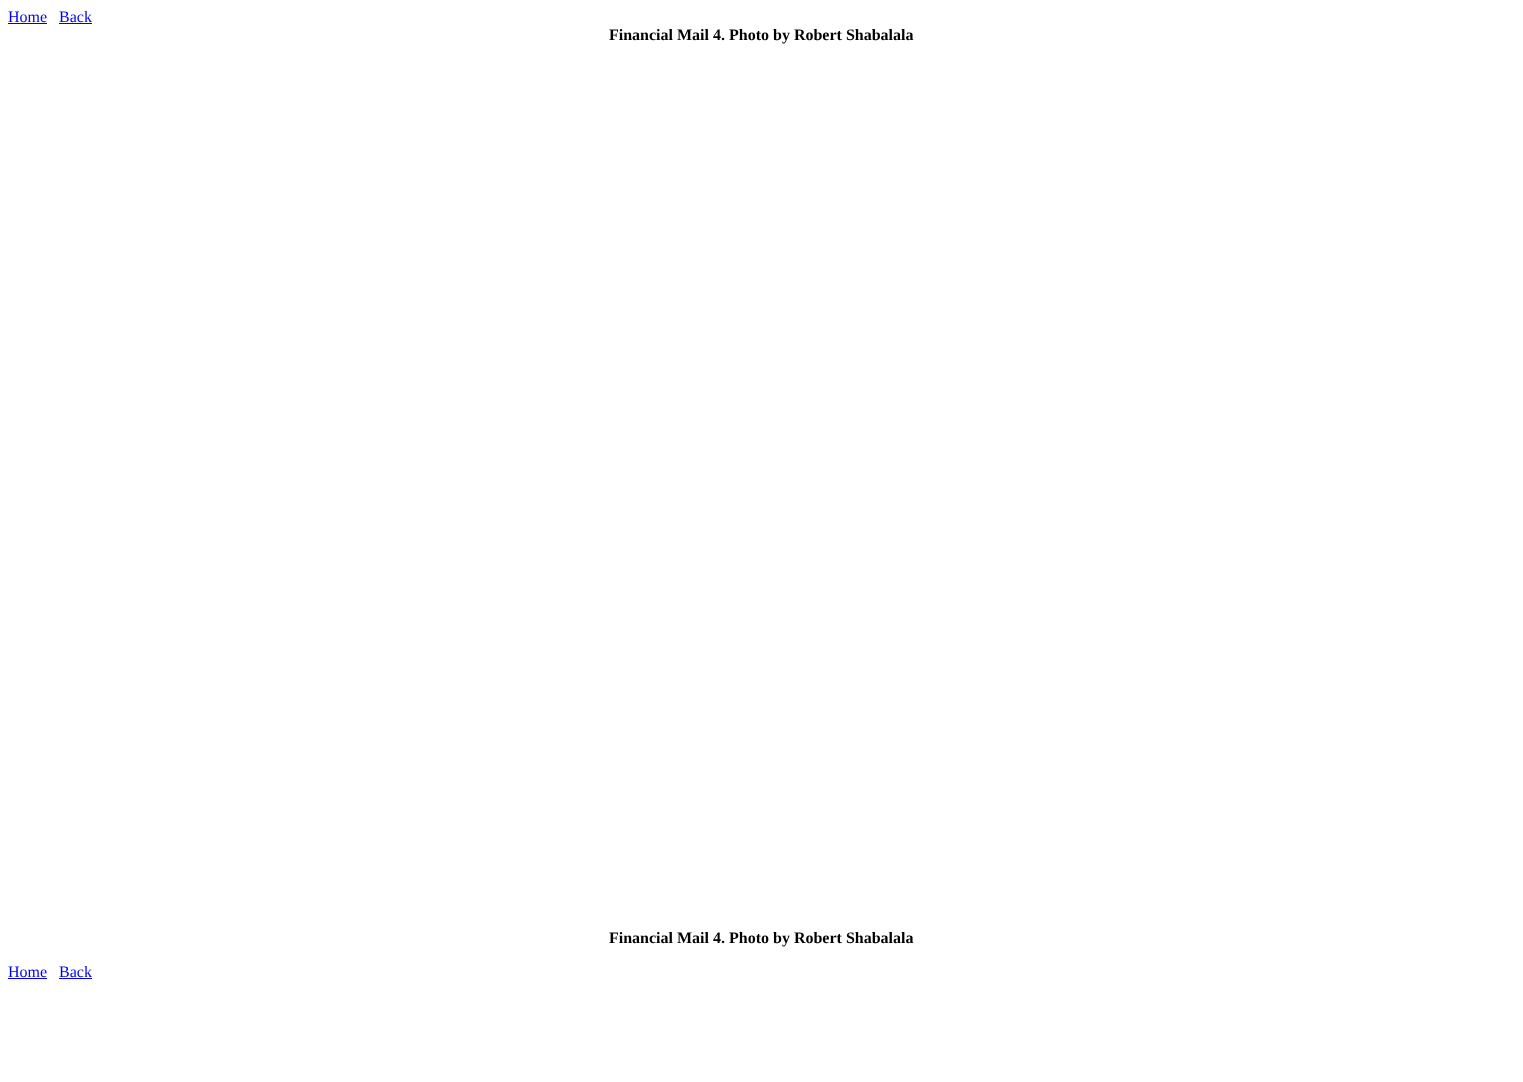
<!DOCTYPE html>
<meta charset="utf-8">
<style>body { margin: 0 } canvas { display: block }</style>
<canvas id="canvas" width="1523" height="1082"></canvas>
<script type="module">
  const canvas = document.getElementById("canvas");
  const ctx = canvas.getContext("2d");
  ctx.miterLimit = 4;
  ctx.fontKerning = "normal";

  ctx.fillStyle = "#ffffff";
  ctx.fillRect(0, 0, 1523, 1082);
  ctx.font = "16px Liberation Serif";
  ctx.fillStyle = "#0000ee";
  ctx.fillText("Home", 8, 22);
  ctx.fillRect(8, 23, 39, 1);
  ctx.fillText("Back", 59, 22);
  ctx.fillRect(59, 23, 33, 1);
  ctx.font = "bold 16px Liberation Serif";
  ctx.fillStyle = "#000000";
  ctx.fillText("Financial Mail 4. Photo by Robert Shabalala", 609, 40);
  ctx.fillText("Financial Mail 4. Photo by Robert Shabalala", 609, 943);
  ctx.font = "16px Liberation Serif";
  ctx.fillStyle = "#0000ee";
  ctx.fillText("Home", 8, 977);
  ctx.fillRect(8, 978, 39, 1);
  ctx.fillText("Back", 59, 977);
  ctx.fillRect(59, 978, 33, 1);
</script>
